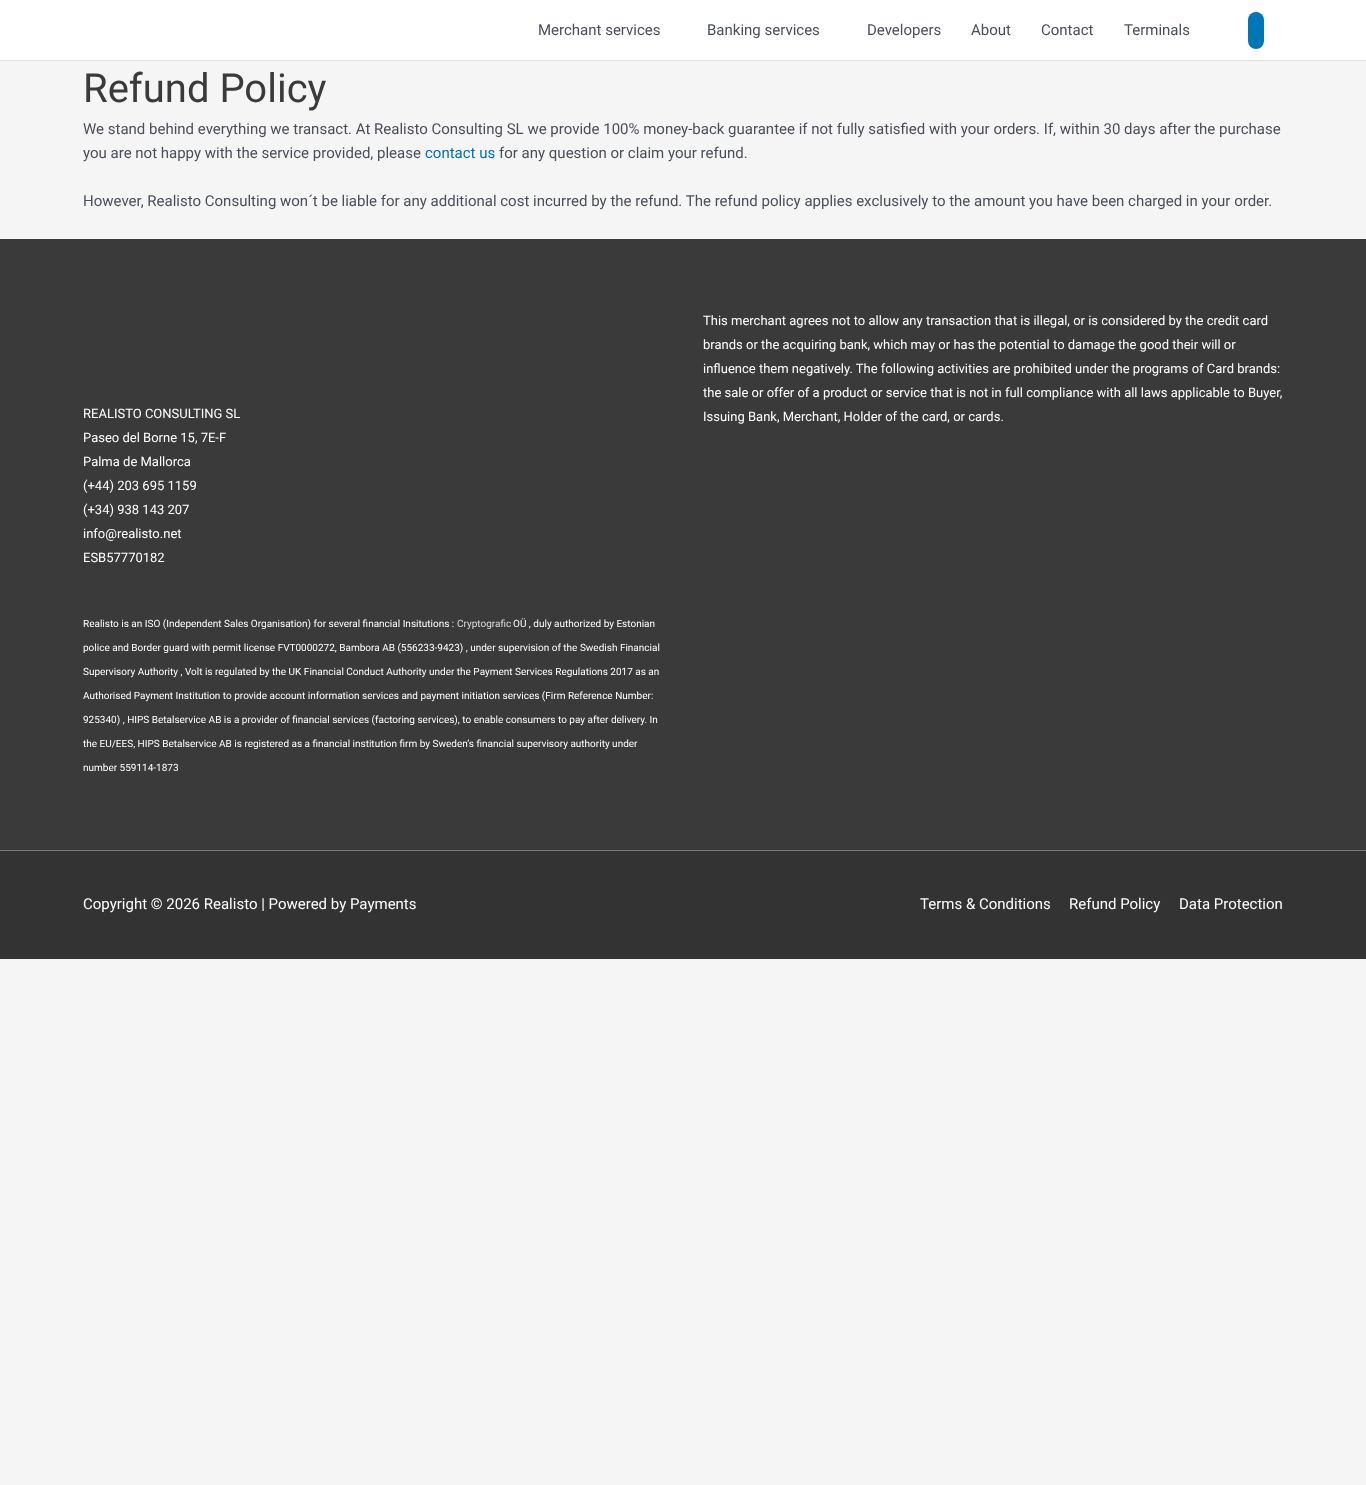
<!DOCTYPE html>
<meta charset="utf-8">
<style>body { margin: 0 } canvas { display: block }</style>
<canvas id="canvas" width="1366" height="1485"></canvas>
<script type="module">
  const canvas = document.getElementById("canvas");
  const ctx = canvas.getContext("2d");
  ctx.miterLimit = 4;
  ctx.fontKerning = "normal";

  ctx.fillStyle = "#f5f5f5";
  ctx.fillRect(0, 0, 1366, 1485);
  ctx.fillStyle = "#ffffff";
  ctx.fillRect(0, 0, 1366, 60);
  ctx.fillStyle = "#dddddd";
  ctx.fillRect(0, 60, 1366, 1);
  ctx.font = "15px Roboto";
  ctx.fillStyle = "#4b4f58";
  ctx.fillText("Merchant services", 538, 35);
  ctx.fillText("Banking services", 707, 35);
  ctx.fillText("Developers", 867, 35);
  ctx.fillText("About", 971, 35);
  ctx.fillText("Contact", 1041, 35);
  ctx.fillText("Terminals", 1124, 35);
  ctx.fillStyle = "#0077b5";
  ctx.beginPath();
  ctx.roundRect(1248, 12, 16, 37, 8);
  ctx.fill();
  ctx.font = "40px Roboto";
  ctx.fillStyle = "#3a3a3a";
  ctx.fillText("Refund Policy", 83, 102);
  ctx.font = "15px Roboto";
  ctx.fillStyle = "#4b4f58";
  ctx.fillText("We stand behind everything we transact. At Realisto Consulting SL we provide 100% money-back guarantee if not fully satisfied with your orders. If, within 30 days after the purchase", 83, 134);
  ctx.fillText("you are not happy with the service provided, please", 83, 158);
  ctx.fillStyle = "#0170b9";
  ctx.fillText("contact us", 425, 158);
  ctx.fillStyle = "#4b4f58";
  ctx.fillText("for any question or claim your refund.", 499, 158);
  ctx.fillText("However, Realisto Consulting won´t be liable for any additional cost incurred by the refund. The refund policy applies exclusively to the amount you have been charged in your order.", 83, 206);
  ctx.fillStyle = "#3a3a3a";
  ctx.fillRect(0, 239, 1366, 611);
  ctx.font = "13px Roboto";
  ctx.fillStyle = "#ffffff";
  ctx.fillText("This merchant agrees not to allow any transaction that is illegal, or is considered by the credit card", 703, 325);
  ctx.fillText("brands or the acquiring bank, which may or has the potential to damage the good their will or", 703, 349);
  ctx.fillText("influence them negatively. The following activities are prohibited under the programs of Card brands:", 703, 373);
  ctx.fillText("the sale or offer of a product or service that is not in full compliance with all laws applicable to Buyer,", 703, 397);
  ctx.fillText("Issuing Bank, Merchant, Holder of the card, or cards.", 703, 421);
  ctx.fillText("REALISTO CONSULTING SL", 83, 418);
  ctx.fillText("Paseo del Borne 15, 7E-F", 83, 442);
  ctx.fillText("Palma de Mallorca", 83, 466);
  ctx.fillText("(+44) 203 695 1159", 83, 490);
  ctx.fillText("(+34) 938 143 207", 83, 514);
  ctx.fillText("info@realisto.net", 83, 538);
  ctx.fillText("ESB57770182", 83, 562);
  ctx.font = "10px Roboto";
  ctx.fillText("Realisto is an ISO (Independent Sales Organisation) for several financial Insitutions :", 83, 627);
  ctx.fillStyle = "#dddddd";
  ctx.fillText("Cryptografic", 457, 627);
  ctx.fillStyle = "#ffffff";
  ctx.fillText("OÜ , duly authorized by Estonian", 513, 627);
  ctx.fillText("police and Border guard with permit license FVT0000272, Bambora AB (556233-9423) , under supervision of the Swedish Financial", 83, 651);
  ctx.fillText("Supervisory Authority , Volt is regulated by the UK Financial Conduct Authority under the Payment Services Regulations 2017 as an", 83, 675);
  ctx.fillText("Authorised Payment Institution to provide account information services and payment initiation services (Firm Reference Number:", 83, 699);
  ctx.fillText("925340) , HIPS Betalservice AB is a provider of financial services (factoring services), to enable consumers to pay after delivery. In", 83, 723);
  ctx.fillText("the EU/EES, HIPS Betalservice AB is registered as a financial institution firm by Sweden’s financial supervisory authority under", 83, 747);
  ctx.fillText("number 559114-1873", 83, 771);
  ctx.fillStyle = "#7a7a7a";
  ctx.fillRect(0, 850, 1366, 1);
  ctx.fillStyle = "#333333";
  ctx.fillRect(0, 851, 1366, 108);
  ctx.font = "15px Roboto";
  ctx.fillStyle = "#ffffff";
  ctx.fillText("Copyright © 2026 Realisto | Powered by Payments", 83, 909);
  ctx.fillText("Terms & Conditions", 920, 909);
  ctx.fillText("Refund Policy", 1069, 909);
  ctx.fillText("Data Protection", 1179, 909);
</script>
